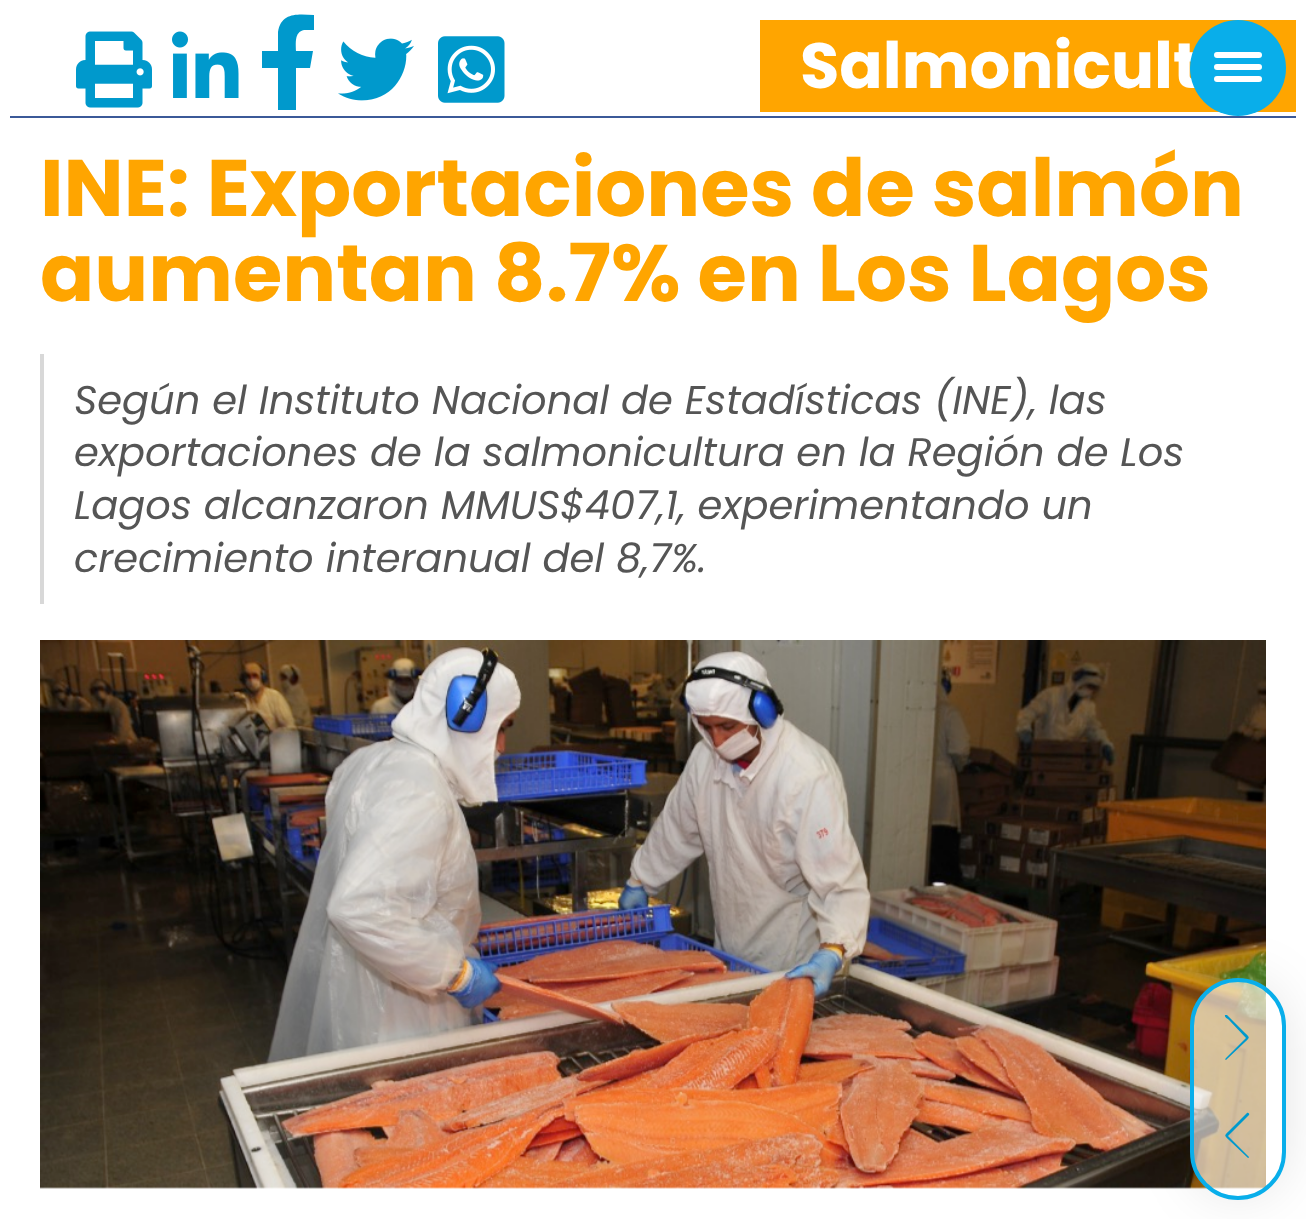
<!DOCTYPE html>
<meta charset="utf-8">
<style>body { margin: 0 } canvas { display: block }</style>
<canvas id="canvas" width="1306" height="1219"></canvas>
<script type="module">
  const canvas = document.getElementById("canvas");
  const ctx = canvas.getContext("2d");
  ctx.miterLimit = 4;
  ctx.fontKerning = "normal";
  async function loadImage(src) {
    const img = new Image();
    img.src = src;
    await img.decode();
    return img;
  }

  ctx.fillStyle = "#ffffff";
  ctx.fillRect(0, 0, 1306, 1219);
  ctx.fillStyle = "#ffa500";
  ctx.fillRect(760, 20, 536, 92);
  ctx.font = "bold 64px Poppins";
  ctx.fillStyle = "#ffffff";
  ctx.fillText("Salmonicult", 800, 88);
  ctx.fillStyle = "#09aeea";
  ctx.beginPath();
  ctx.arc(1238, 68, 48, 0, Math.PI * 2);
  ctx.fill();
  ctx.fillStyle = "#ffffff";
  ctx.beginPath();
  ctx.roundRect(1214, 52, 48, 6, 3);
  ctx.fill();
  ctx.beginPath();
  ctx.roundRect(1214, 64, 48, 6, 3);
  ctx.fill();
  ctx.beginPath();
  ctx.roundRect(1214, 76, 48, 6, 3);
  ctx.fill();
  ctx.fillStyle = "#3b5998";
  ctx.fillRect(10, 116, 1286, 2);
  ctx.drawImage(await loadImage("img1.png"), 76, 31, 76, 77);
  ctx.drawImage(await loadImage("img2.png"), 172, 31, 67, 67);
  ctx.fillStyle = "#0099cc";
  ctx.beginPath();
  ctx.moveTo(310, 68);
  ctx.lineTo(296, 68);
  ctx.lineTo(296, 110);
  ctx.lineTo(278, 110);
  ctx.lineTo(278, 68);
  ctx.lineTo(262, 68);
  ctx.lineTo(262, 51);
  ctx.lineTo(278, 51);
  ctx.lineTo(278, 32);
  ctx.bezierCurveTo(281, 12, 298, 14, 314, 15);
  ctx.lineTo(314, 30);
  ctx.lineTo(304, 30);
  ctx.bezierCurveTo(294, 32, 296, 44, 296, 51);
  ctx.lineTo(313, 51);
  ctx.closePath();
  ctx.fill();
  ctx.drawImage(await loadImage("img3.png"), 338, 38, 76, 63);
  ctx.drawImage(await loadImage("img4.png"), 438, 36, 67, 67);
  ctx.font = "bold 80px Poppins";
  ctx.fillStyle = "#ffa500";
  ctx.fillText("INE: Exportaciones de salmón", 40, 216);
  ctx.fillText("aumentan 8.7% en Los Lagos", 40, 301);
  ctx.fillStyle = "#d8d8d8";
  ctx.fillRect(40, 354, 4, 250);
  ctx.font = "italic 40px Poppins";
  ctx.fillStyle = "#555555";
  ctx.fillText("Según el Instituto Nacional de Estadísticas (INE), las", 74, 414);
  ctx.fillText("exportaciones de la salmonicultura en la Región de Los", 74, 466);
  ctx.fillText("Lagos alcanzaron MMUS$407,1, experimentando un", 74, 519);
  ctx.fillText("crecimiento interanual del 8,7%.", 74, 572);
  ctx.drawImage(await loadImage("img5.png"), 40, 640, 1226, 549);
  ctx.save();
  ctx.beginPath();
  ctx.moveTo(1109, 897);
  ctx.lineTo(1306, 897);
  ctx.lineTo(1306, 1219);
  ctx.lineTo(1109, 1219);
  ctx.closePath();
  ctx.moveTo(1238, 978);
  ctx.bezierCurveTo(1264.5, 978, 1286, 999.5, 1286, 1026);
  ctx.lineTo(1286, 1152);
  ctx.bezierCurveTo(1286, 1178.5, 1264.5, 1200, 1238, 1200);
  ctx.bezierCurveTo(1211.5, 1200, 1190, 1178.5, 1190, 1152);
  ctx.lineTo(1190, 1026);
  ctx.bezierCurveTo(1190, 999.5, 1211.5, 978, 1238, 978);
  ctx.closePath();
  ctx.clip("evenodd");
  ctx.fillStyle = "rgba(0, 0, 0, 0.15)";
  ctx.filter = "blur(30px)";
  ctx.beginPath();
  ctx.roundRect(1200, 988, 76, 202, 38);
  ctx.fill();
  ctx.filter = "none";
  ctx.restore();
  ctx.fillStyle = "rgba(255, 255, 255, 0.6)";
  ctx.beginPath();
  ctx.roundRect(1192, 980, 92, 218, 46);
  ctx.fill();
  ctx.strokeStyle = "#09aeea";
  ctx.lineWidth = 4;
  ctx.stroke();
  ctx.fillStyle = "#0099cc";
  ctx.beginPath();
  ctx.moveTo(1226, 1060);
  ctx.bezierCurveTo(1225, 1060, 1225, 1059, 1226, 1058);
  ctx.lineTo(1246, 1038);
  ctx.lineTo(1229, 1020);
  ctx.bezierCurveTo(1228, 1019, 1224, 1017, 1225, 1015);
  ctx.bezierCurveTo(1226, 1015, 1227, 1015, 1227, 1015);
  ctx.lineTo(1245, 1033);
  ctx.bezierCurveTo(1250, 1038, 1250, 1037, 1245, 1042);
  ctx.closePath();
  ctx.fill();
  ctx.beginPath();
  ctx.moveTo(1248, 1158);
  ctx.bezierCurveTo(1249, 1158, 1249, 1157, 1249, 1157);
  ctx.lineTo(1228, 1136);
  ctx.lineTo(1249, 1115);
  ctx.bezierCurveTo(1250, 1114, 1248, 1112, 1247, 1113);
  ctx.lineTo(1229, 1131);
  ctx.bezierCurveTo(1224, 1136, 1224, 1135, 1229, 1140);
  ctx.closePath();
  ctx.fill();
</script>
